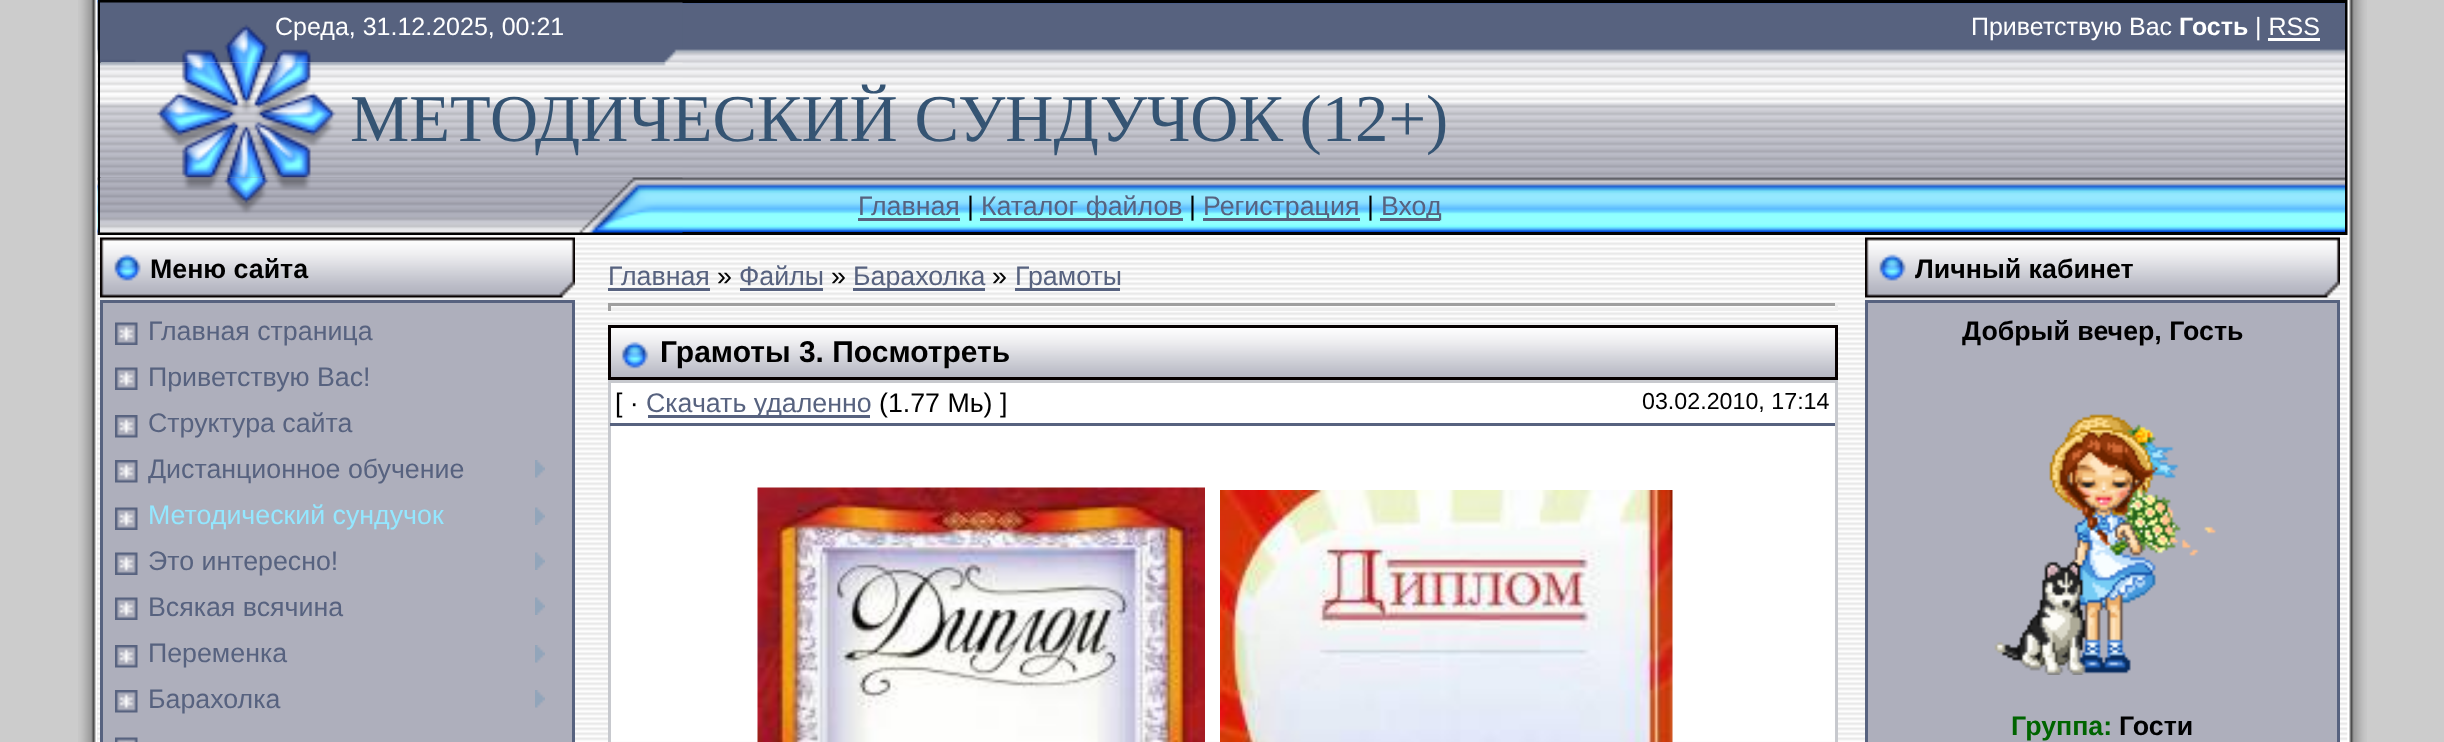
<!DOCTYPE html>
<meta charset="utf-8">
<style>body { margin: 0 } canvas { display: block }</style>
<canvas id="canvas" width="2444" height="742"></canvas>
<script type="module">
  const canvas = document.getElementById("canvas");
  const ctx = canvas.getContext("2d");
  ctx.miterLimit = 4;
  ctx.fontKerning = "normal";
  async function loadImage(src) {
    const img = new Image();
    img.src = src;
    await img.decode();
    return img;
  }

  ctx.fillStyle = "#ffffff";
  ctx.fillRect(0, 0, 2444, 742);
  ctx.fillStyle = "#cccccc";
  ctx.fillRect(0, 0, 98, 742);
  ctx.drawImage(await loadImage("img1.png"), 78, 0, 20, 742);
  ctx.drawImage(await loadImage("img2.png"), 97, 0, 2248, 235);
  ctx.strokeStyle = "#000000";
  ctx.lineWidth = 3;
  ctx.strokeRect(99.5, 1.5, 2247, 232);
  ctx.drawImage(await loadImage("img3.png"), 100, 2, 583, 61);
  ctx.font = "25px Liberation Sans";
  ctx.fillStyle = "#ffffff";
  ctx.fillText("Среда, 31.12.2025, 00:21", 275, 35);
  ctx.fillText("Приветствую Вас", 1971, 35);
  ctx.font = "bold 25px Liberation Sans";
  ctx.fillText("Гость", 2179, 35);
  ctx.font = "25px Liberation Sans";
  ctx.fillText("| RSS", 2255, 35);
  ctx.fillRect(2268, 38, 52, 3);
  ctx.drawImage(await loadImage("img4.png"), 100, 62, 583, 116);
  ctx.font = "66.7px Liberation Serif";
  ctx.fillStyle = "#355473";
  ctx.fillText("МЕТОДИЧЕСКИЙ СУНДУЧОК (12+)", 350, 141);
  ctx.drawImage(await loadImage("img5.png"), 100, 177, 583, 56);
  ctx.font = "26.75px Liberation Sans";
  ctx.fillStyle = "#57627f";
  ctx.fillText("Главная", 858, 215);
  ctx.fillRect(858, 218, 102, 3);
  ctx.fillStyle = "#000000";
  ctx.fillText("|", 967, 215);
  ctx.fillStyle = "#57627f";
  ctx.fillRect(980, 218, 203, 3);
  ctx.fillText("Каталог файлов", 981, 215);
  ctx.fillStyle = "#000000";
  ctx.fillText("|", 1189, 215);
  ctx.fillStyle = "#57627f";
  ctx.fillRect(1203, 218, 157, 3);
  ctx.fillText("Регистрация", 1203, 215);
  ctx.fillStyle = "#000000";
  ctx.fillText("|", 1367, 215);
  ctx.fillStyle = "#57627f";
  ctx.fillRect(1380, 218, 60, 3);
  ctx.fillText("Вход", 1381, 215);
  ctx.drawImage(await loadImage("img6.png"), 97, 235, 2251, 507);
  ctx.drawImage(await loadImage("img7.png"), 100, 237, 475, 61);
  ctx.font = "bold 26.75px Liberation Sans";
  ctx.fillStyle = "#000000";
  ctx.fillText("Меню сайта", 150, 278);
  ctx.fillStyle = "#aeafbc";
  ctx.beginPath();
  ctx.rect(101.5, 301.5, 472, 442);
  ctx.fill();
  ctx.strokeStyle = "#57627f";
  ctx.stroke();
  ctx.drawImage(await loadImage("img8.png"), 115, 322, 23, 23);
  ctx.font = "26.75px Liberation Sans";
  ctx.fillStyle = "#57627f";
  ctx.fillText("Главная страница", 148, 340);
  ctx.drawImage(await loadImage("img8.png"), 115, 367, 23, 23);
  ctx.fillText("Приветствую Вас!", 148, 386);
  ctx.drawImage(await loadImage("img9.png"), 115, 415, 23, 23);
  ctx.fillText("Структура сайта", 148, 432);
  ctx.drawImage(await loadImage("img9.png"), 115, 460, 23, 23);
  ctx.fillText("Дистанционное обучение", 148, 478);
  ctx.drawImage(await loadImage("img10.png"), 535, 460, 10, 18);
  ctx.drawImage(await loadImage("img8.png"), 115, 507, 23, 23);
  ctx.fillStyle = "#94e7ff";
  ctx.fillText("Методический сундучок", 148, 524);
  ctx.drawImage(await loadImage("img11.png"), 535, 507, 10, 18);
  ctx.drawImage(await loadImage("img8.png"), 115, 552, 23, 23);
  ctx.fillStyle = "#57627f";
  ctx.fillText("Это интересно!", 148, 570);
  ctx.drawImage(await loadImage("img11.png"), 535, 552, 10, 18);
  ctx.drawImage(await loadImage("img8.png"), 115, 597, 23, 23);
  ctx.fillText("Всякая всячина", 148, 616);
  ctx.drawImage(await loadImage("img11.png"), 535, 597, 10, 18);
  ctx.drawImage(await loadImage("img9.png"), 115, 645, 23, 23);
  ctx.fillText("Переменка", 148, 662);
  ctx.drawImage(await loadImage("img10.png"), 535, 645, 10, 18);
  ctx.drawImage(await loadImage("img9.png"), 115, 690, 23, 23);
  ctx.fillText("Барахолка", 148, 708);
  ctx.drawImage(await loadImage("img10.png"), 535, 690, 10, 18);
  ctx.drawImage(await loadImage("img12.png"), 115, 737, 23, 5);
  ctx.fillText("Главная", 608, 285);
  ctx.fillRect(608, 288, 102, 3);
  ctx.fillStyle = "#000000";
  ctx.fillText("»", 717, 285);
  ctx.fillStyle = "#57627f";
  ctx.fillText("Файлы", 739, 285);
  ctx.fillRect(740, 288, 83, 3);
  ctx.fillStyle = "#000000";
  ctx.fillText("»", 831, 285);
  ctx.fillStyle = "#57627f";
  ctx.fillRect(853, 288, 132, 3);
  ctx.fillText("Барахолка", 853, 285);
  ctx.fillStyle = "#000000";
  ctx.fillText("»", 992, 285);
  ctx.fillStyle = "#57627f";
  ctx.fillRect(1015, 288, 105, 3);
  ctx.fillText("Грамоты", 1015, 285);
  ctx.fillStyle = "#9f9f9f";
  ctx.fillRect(608, 303, 1230, 3);
  ctx.fillStyle = "#eeeeee";
  ctx.fillRect(1835, 303, 3, 8);
  ctx.fillRect(608, 308, 1230, 3);
  ctx.fillStyle = "#9f9f9f";
  ctx.fillRect(608, 303, 3, 8);
  ctx.drawImage(await loadImage("img13.png"), 611, 328, 1224, 49);
  ctx.strokeStyle = "#060000";
  ctx.strokeRect(609.5, 326.5, 1227, 52);
  ctx.font = "bold 30px Liberation Sans";
  ctx.fillStyle = "#000000";
  ctx.fillText("Грамоты 3. Посмотреть", 660, 362);
  ctx.fillStyle = "#ffffff";
  ctx.fillRect(611, 383, 1224, 358);
  ctx.strokeStyle = "#c7c9ce";
  ctx.strokeRect(609.5, 381.5, 1227, 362);
  ctx.font = "26.75px Liberation Sans";
  ctx.fillStyle = "#000000";
  ctx.fillText("[ ·", 615, 412);
  ctx.fillStyle = "#57627f";
  ctx.fillRect(648, 415, 222, 3);
  ctx.fillText("Скачать удаленно", 646, 412);
  ctx.fillStyle = "#000000";
  ctx.fillText("(1.77 Мь) ]", 879, 412);
  ctx.font = "23.25px Liberation Sans";
  ctx.fillText("03.02.2010, 17:14", 1642, 409);
  ctx.fillStyle = "#57627f";
  ctx.fillRect(610, 423, 1225, 3);
  ctx.drawImage(await loadImage("img14.png"), 757, 487, 448, 255);
  ctx.drawImage(await loadImage("img15.png"), 1220, 490, 453, 252);
  ctx.drawImage(await loadImage("img16.png"), 1865, 237, 475, 61);
  ctx.font = "bold 26.75px Liberation Sans";
  ctx.fillStyle = "#000000";
  ctx.fillText("Личный кабинет", 1915, 278);
  ctx.fillStyle = "#aeafbc";
  ctx.beginPath();
  ctx.rect(1866.5, 301.5, 472, 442);
  ctx.fill();
  ctx.strokeStyle = "#57627f";
  ctx.stroke();
  ctx.fillStyle = "#000000";
  ctx.fillText("Добрый вечер, Гость", 1962, 340);
  ctx.drawImage(await loadImage("img17.png"), 1994, 414, 222, 261);
  ctx.fillStyle = "#006400";
  ctx.fillText("Группа:", 2011, 735);
  ctx.fillStyle = "#000000";
  ctx.fillText("Гости", 2119, 735);
  ctx.fillStyle = "#cccccc";
  ctx.fillRect(2367, 0, 77, 742);
  ctx.drawImage(await loadImage("img18.png"), 2347, 0, 20, 742);
</script>
